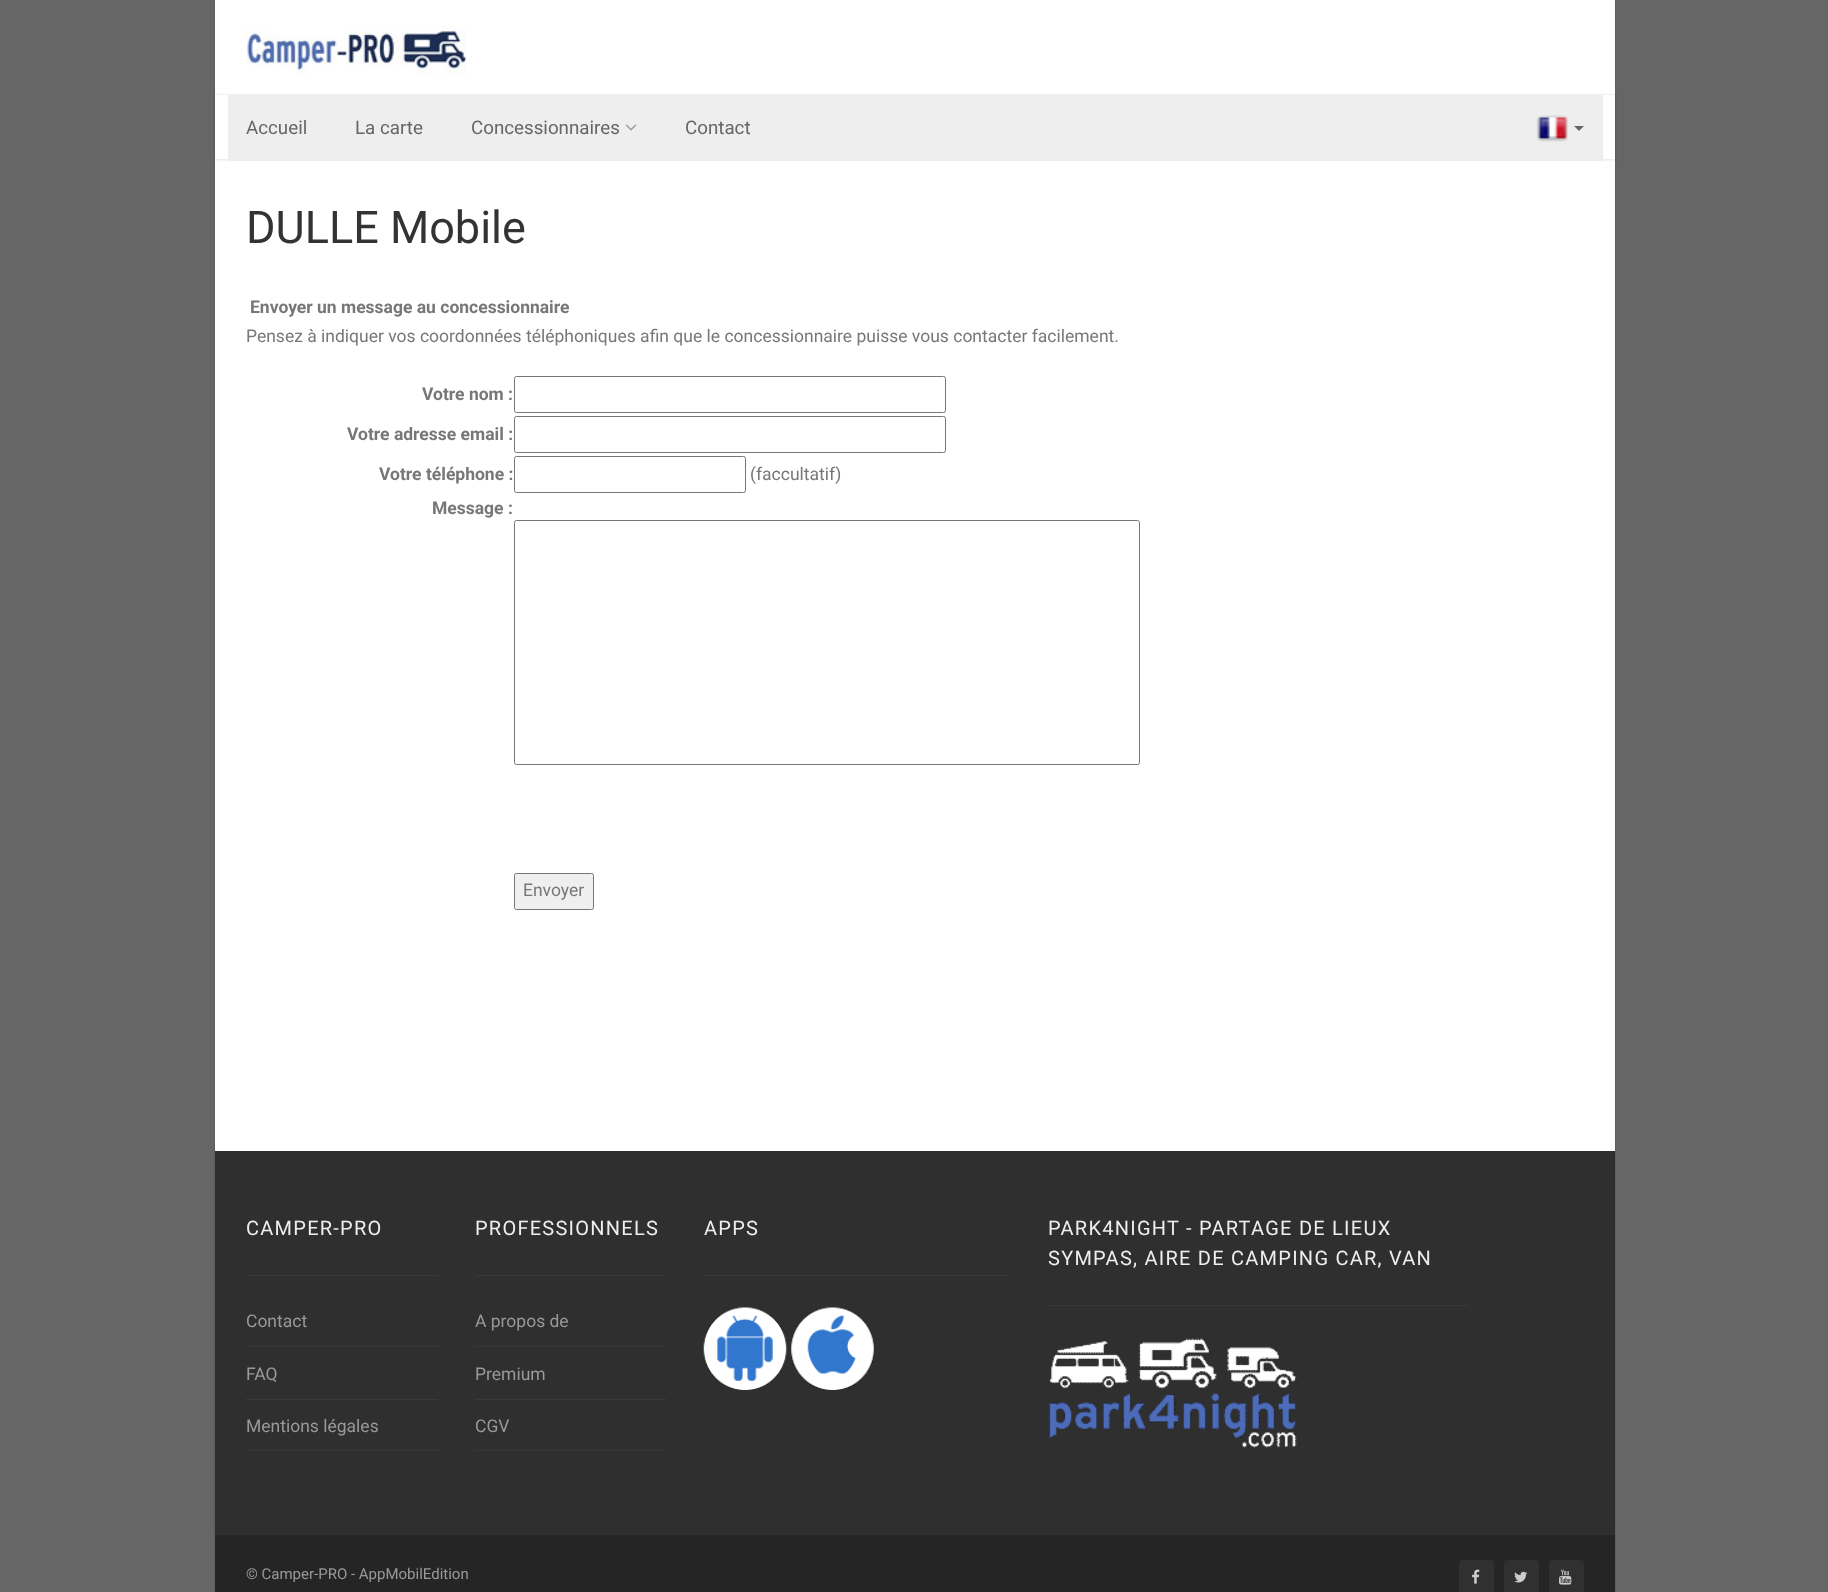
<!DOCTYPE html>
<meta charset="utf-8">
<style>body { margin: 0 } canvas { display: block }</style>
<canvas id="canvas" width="1828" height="1592"></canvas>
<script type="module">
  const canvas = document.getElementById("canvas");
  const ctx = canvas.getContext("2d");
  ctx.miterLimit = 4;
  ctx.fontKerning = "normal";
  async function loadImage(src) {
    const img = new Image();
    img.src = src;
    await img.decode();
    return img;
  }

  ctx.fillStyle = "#666666";
  ctx.fillRect(0, 0, 1828, 1592);
  ctx.fillStyle = "rgba(0, 0, 0, 0.2)";
  ctx.filter = "blur(1px)";
  ctx.beginPath();
  ctx.rect(215, 0, 1400, 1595);
  ctx.fill();
  ctx.filter = "none";
  ctx.fillStyle = "#ffffff";
  ctx.fillRect(215, 0, 1400, 1151);
  ctx.save();
  ctx.beginPath();
  ctx.moveTo(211, 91);
  ctx.lineTo(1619, 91);
  ctx.lineTo(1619, 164);
  ctx.lineTo(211, 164);
  ctx.closePath();
  ctx.moveTo(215, 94);
  ctx.lineTo(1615, 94);
  ctx.lineTo(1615, 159);
  ctx.lineTo(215, 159);
  ctx.closePath();
  ctx.clip("evenodd");
  ctx.fillStyle = "rgba(0, 0, 0, 0.1)";
  ctx.filter = "blur(1px)";
  ctx.beginPath();
  ctx.rect(215, 95, 1400, 65);
  ctx.fill();
  ctx.filter = "none";
  ctx.restore();
  ctx.fillStyle = "#f2f2f2";
  ctx.fillRect(215, 94, 1400, 1);
  ctx.drawImage(await loadImage("img1.png"), 246, 25, 221, 50);
  ctx.fillStyle = "rgba(255, 255, 255, 0.9)";
  ctx.fillRect(215, 158, 1400, 1);
  ctx.fillStyle = "#eeeeee";
  ctx.fillRect(228, 95, 1375, 66);
  ctx.font = "18.75px Roboto";
  ctx.fillStyle = "#666666";
  ctx.fillText("Accueil", 246, 134);
  ctx.fillText("La carte", 355, 134);
  ctx.fillText("Concessionnaires", 471, 134);
  ctx.drawImage(await loadImage("img2.png"), 625, 124, 12, 7);
  ctx.fillText("Contact", 685, 134);
  ctx.drawImage(await loadImage("img3.png"), 1536, 115, 32, 27);
  ctx.beginPath();
  ctx.moveTo(1574, 126);
  ctx.lineTo(1584, 126);
  ctx.lineTo(1579, 131);
  ctx.closePath();
  ctx.fill();
  ctx.font = "45px Roboto";
  ctx.fillStyle = "#333333";
  ctx.fillText("DULLE Mobile", 246, 243);
  ctx.font = "bold 17.5px Roboto";
  ctx.fillStyle = "#777777";
  ctx.fillText("Envoyer un message au concessionnaire", 250, 313);
  ctx.font = "17.5px Roboto";
  ctx.fillText("Pensez à indiquer vos coordonnées téléphoniques afin que le concessionnaire puisse vous contacter facilement.", 246, 342);
  ctx.font = "bold 17.5px Roboto";
  ctx.fillText("Votre nom :", 422, 400);
  ctx.beginPath();
  ctx.roundRect(514.5, 376.5, 431, 36, 2);
  ctx.strokeStyle = "#767676";
  ctx.stroke();
  ctx.fillText("Votre adresse email :", 347, 440);
  ctx.beginPath();
  ctx.roundRect(514.5, 416.5, 431, 36, 2);
  ctx.stroke();
  ctx.fillText("Votre téléphone :", 379, 480);
  ctx.beginPath();
  ctx.roundRect(514.5, 456.5, 231, 36, 2);
  ctx.stroke();
  ctx.font = "17.5px Roboto";
  ctx.fillText("(faccultatif)", 750, 480);
  ctx.font = "bold 17.5px Roboto";
  ctx.fillText("Message :", 432, 514);
  ctx.beginPath();
  ctx.roundRect(514.5, 520.5, 625, 244, 2);
  ctx.stroke();
  ctx.fillStyle = "#efefef";
  ctx.beginPath();
  ctx.roundRect(514.5, 873.5, 79, 36, 2);
  ctx.fill();
  ctx.stroke();
  ctx.font = "17.5px Roboto";
  ctx.fillStyle = "#777777";
  ctx.fillText("Envoyer", 523, 896);
  ctx.fillStyle = "#2f2f2f";
  ctx.fillRect(215, 1151, 1400, 383);
  ctx.fillStyle = "#393939";
  ctx.fillRect(246, 1275, 192, 1);
  ctx.letterSpacing = "1.25px";
  ctx.font = "20px Roboto";
  ctx.fillStyle = "#eeeeee";
  ctx.fillText("CAMPER-PRO", 246, 1235);
  ctx.fillStyle = "#393939";
  ctx.fillRect(246, 1346, 192, 1);
  ctx.letterSpacing = "0px";
  ctx.font = "17.5px Roboto";
  ctx.fillStyle = "#999999";
  ctx.fillText("Contact", 246, 1327);
  ctx.fillStyle = "#393939";
  ctx.fillRect(246, 1399, 192, 1);
  ctx.fillStyle = "#999999";
  ctx.fillText("FAQ", 246, 1380);
  ctx.fillStyle = "#393939";
  ctx.fillRect(246, 1450, 192, 1);
  ctx.fillStyle = "#999999";
  ctx.fillText("Mentions légales", 246, 1432);
  ctx.fillStyle = "#393939";
  ctx.fillRect(475, 1275, 191, 1);
  ctx.letterSpacing = "1.25px";
  ctx.font = "20px Roboto";
  ctx.fillStyle = "#eeeeee";
  ctx.fillText("PROFESSIONNELS", 475, 1235);
  ctx.fillStyle = "#393939";
  ctx.fillRect(475, 1346, 191, 1);
  ctx.letterSpacing = "0px";
  ctx.font = "17.5px Roboto";
  ctx.fillStyle = "#999999";
  ctx.fillText("A propos de", 475, 1327);
  ctx.fillStyle = "#393939";
  ctx.fillRect(475, 1399, 191, 1);
  ctx.fillStyle = "#999999";
  ctx.fillText("Premium", 475, 1380);
  ctx.fillStyle = "#393939";
  ctx.fillRect(475, 1450, 191, 1);
  ctx.fillStyle = "#999999";
  ctx.fillText("CGV", 475, 1432);
  ctx.fillStyle = "#393939";
  ctx.fillRect(704, 1275, 306, 1);
  ctx.letterSpacing = "1.25px";
  ctx.font = "20px Roboto";
  ctx.fillStyle = "#eeeeee";
  ctx.fillText("APPS", 704, 1235);
  ctx.drawImage(await loadImage("img4.png"), 703, 1307, 84, 83);
  ctx.drawImage(await loadImage("img5.png"), 791, 1307, 83, 83);
  ctx.fillStyle = "#393939";
  ctx.fillRect(1048, 1305, 421, 1);
  ctx.fillStyle = "#eeeeee";
  ctx.fillText("PARK4NIGHT - PARTAGE DE LIEUX", 1048, 1235);
  ctx.fillText("SYMPAS, AIRE DE CAMPING CAR, VAN", 1048, 1265);
  ctx.drawImage(await loadImage("img6.png"), 1048, 1338, 249, 110);
  ctx.fillStyle = "#252525";
  ctx.fillRect(215, 1535, 1400, 57);
  ctx.fillStyle = "#303030";
  ctx.fillRect(215, 1534, 1400, 1);
  ctx.letterSpacing = "0px";
  ctx.font = "15px Roboto";
  ctx.fillStyle = "#999999";
  ctx.fillText("© Camper-PRO - AppMobilEdition", 246, 1579);
  ctx.fillStyle = "#303030";
  ctx.beginPath();
  ctx.roundRect(1459, 1560, 35, 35, 4);
  ctx.fill();
  ctx.drawImage(await loadImage("img7.png"), 1472, 1569, 8, 15);
  ctx.beginPath();
  ctx.roundRect(1504, 1560, 35, 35, 4);
  ctx.fill();
  ctx.drawImage(await loadImage("img8.png"), 1514, 1571, 14, 12);
  ctx.beginPath();
  ctx.roundRect(1549, 1560, 35, 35, 4);
  ctx.fill();
  ctx.drawImage(await loadImage("img9.png"), 1559, 1569, 13, 16);
</script>
